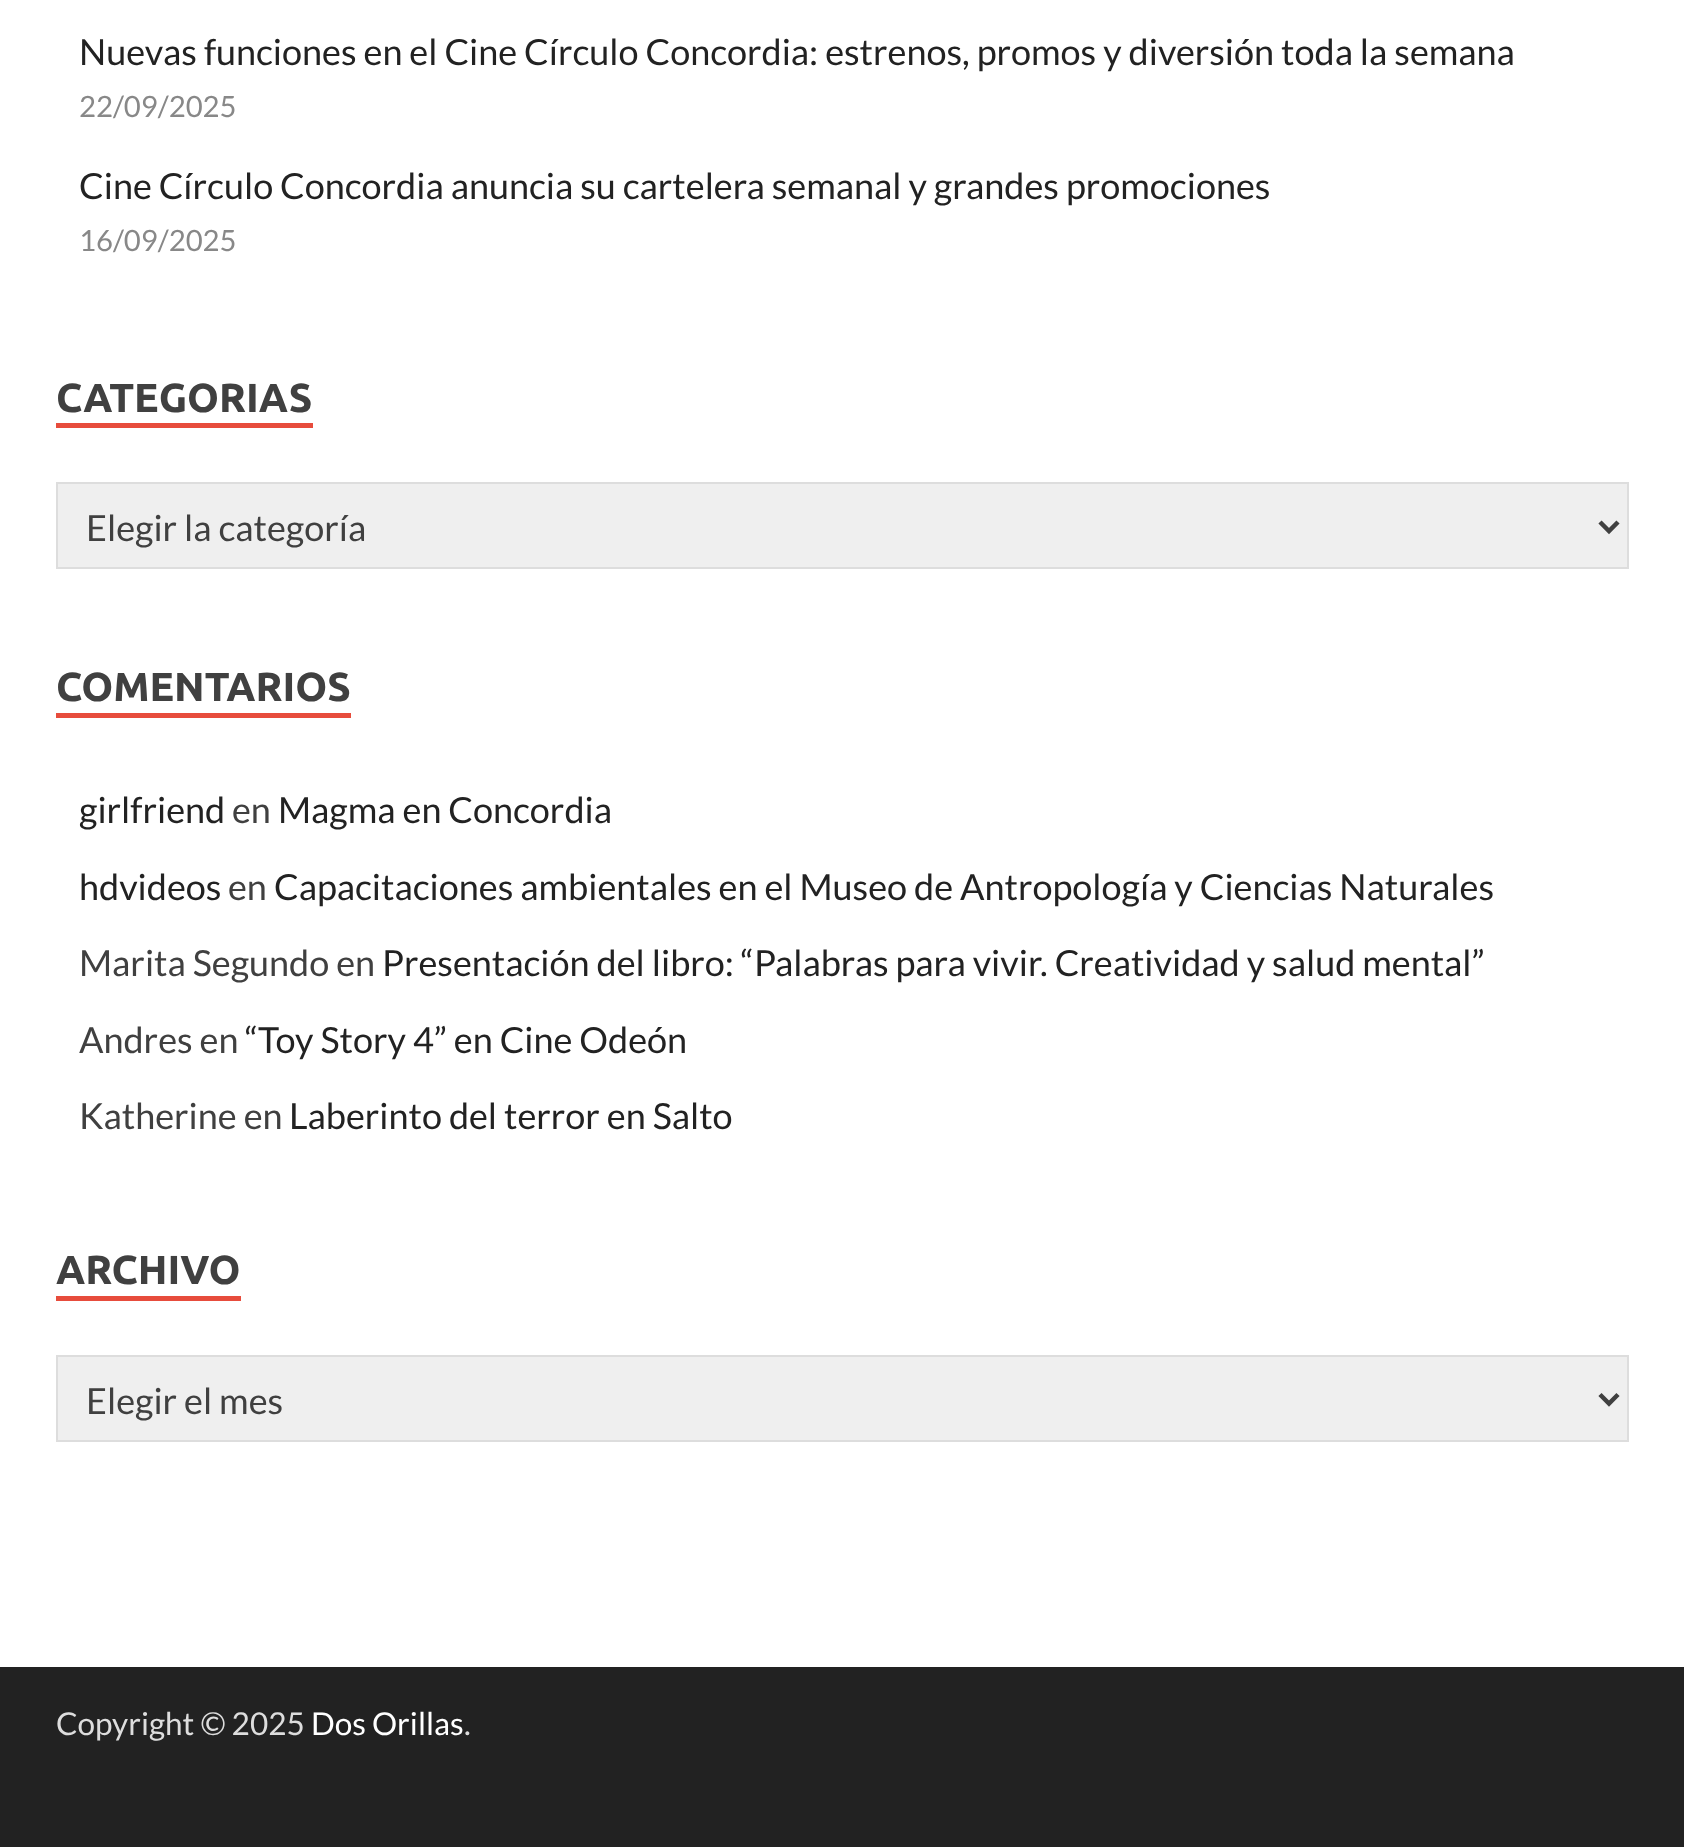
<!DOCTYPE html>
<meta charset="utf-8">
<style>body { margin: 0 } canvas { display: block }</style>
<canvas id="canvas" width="1684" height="1847"></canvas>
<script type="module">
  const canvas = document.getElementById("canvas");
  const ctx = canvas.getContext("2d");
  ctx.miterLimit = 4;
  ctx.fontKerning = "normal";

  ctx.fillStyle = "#ffffff";
  ctx.fillRect(0, 0, 1684, 1847);
  ctx.font = "36px Lato";
  ctx.fillStyle = "#222222";
  ctx.fillText("Nuevas funciones en el Cine Círculo Concordia: estrenos, promos y diversión toda la semana", 79, 65);
  ctx.font = "29.25px Lato";
  ctx.fillStyle = "#888888";
  ctx.fillText("22/09/2025", 79, 117);
  ctx.font = "36px Lato";
  ctx.fillStyle = "#222222";
  ctx.fillText("Cine Círculo Concordia anuncia su cartelera semanal y grandes promociones", 79, 199);
  ctx.font = "29.25px Lato";
  ctx.fillStyle = "#888888";
  ctx.fillText("16/09/2025", 79, 251);
  ctx.fillStyle = "#e74c3c";
  ctx.fillRect(56, 423, 257, 5);
  ctx.font = "bold 40.5px Ubuntu";
  ctx.fillStyle = "#404040";
  ctx.fillText("CATEGORIAS", 56, 412);
  ctx.fillStyle = "#efefef";
  ctx.beginPath();
  ctx.rect(57, 483, 1571, 85);
  ctx.fill();
  ctx.strokeStyle = "#dddddd";
  ctx.lineWidth = 2;
  ctx.stroke();
  ctx.beginPath();
  ctx.moveTo(1600, 522);
  ctx.lineTo(1609, 531);
  ctx.lineTo(1618, 522);
  ctx.strokeStyle = "#404040";
  ctx.lineWidth = 4.5;
  ctx.stroke();
  ctx.font = "36px Lato";
  ctx.fillStyle = "#404040";
  ctx.fillText("Elegir la categoría", 86, 541);
  ctx.fillStyle = "#e74c3c";
  ctx.fillRect(56, 713, 295, 5);
  ctx.font = "bold 40.5px Ubuntu";
  ctx.fillStyle = "#404040";
  ctx.fillText("COMENTARIOS", 56, 701);
  ctx.font = "36px Lato";
  ctx.fillStyle = "#222222";
  ctx.fillText("girlfriend", 79, 823);
  ctx.fillStyle = "#404040";
  ctx.fillText("en", 232, 823);
  ctx.fillStyle = "#222222";
  ctx.fillText("Magma en Concordia", 278, 823);
  ctx.fillText("hdvideos", 79, 900);
  ctx.fillStyle = "#404040";
  ctx.fillText("en", 228, 900);
  ctx.fillStyle = "#222222";
  ctx.fillText("Capacitaciones ambientales en el Museo de Antropología y Ciencias Naturales", 274, 900);
  ctx.fillStyle = "#404040";
  ctx.fillText("Marita Segundo en", 79, 976);
  ctx.fillStyle = "#222222";
  ctx.fillText("Presentación del libro: “Palabras para vivir. Creatividad y salud mental”", 382, 976);
  ctx.fillStyle = "#404040";
  ctx.fillText("Andres en", 79, 1053);
  ctx.fillStyle = "#222222";
  ctx.fillText("“Toy Story 4” en Cine Odeón", 245, 1053);
  ctx.fillStyle = "#404040";
  ctx.fillText("Katherine en", 79, 1129);
  ctx.fillStyle = "#222222";
  ctx.fillText("Laberinto del terror en Salto", 289, 1129);
  ctx.fillStyle = "#e74c3c";
  ctx.fillRect(56, 1296, 185, 5);
  ctx.font = "bold 40.5px Ubuntu";
  ctx.fillStyle = "#404040";
  ctx.fillText("ARCHIVO", 56, 1284);
  ctx.fillStyle = "#efefef";
  ctx.beginPath();
  ctx.rect(57, 1356, 1571, 85);
  ctx.fill();
  ctx.strokeStyle = "#dddddd";
  ctx.lineWidth = 2;
  ctx.stroke();
  ctx.beginPath();
  ctx.moveTo(1600, 1394.5);
  ctx.lineTo(1609, 1403.5);
  ctx.lineTo(1618, 1394.5);
  ctx.strokeStyle = "#404040";
  ctx.lineWidth = 4.5;
  ctx.stroke();
  ctx.font = "36px Lato";
  ctx.fillStyle = "#404040";
  ctx.fillText("Elegir el mes", 86, 1414);
  ctx.fillStyle = "#222222";
  ctx.fillRect(0, 1667, 1684, 180);
  ctx.font = "31.5px Lato";
  ctx.fillStyle = "#dddddd";
  ctx.fillText("Copyright © 2025", 56, 1735);
  ctx.fillStyle = "#ffffff";
  ctx.fillText("Dos Orillas", 311, 1735);
  ctx.fillStyle = "#dddddd";
  ctx.fillText(".", 464, 1735);
</script>
